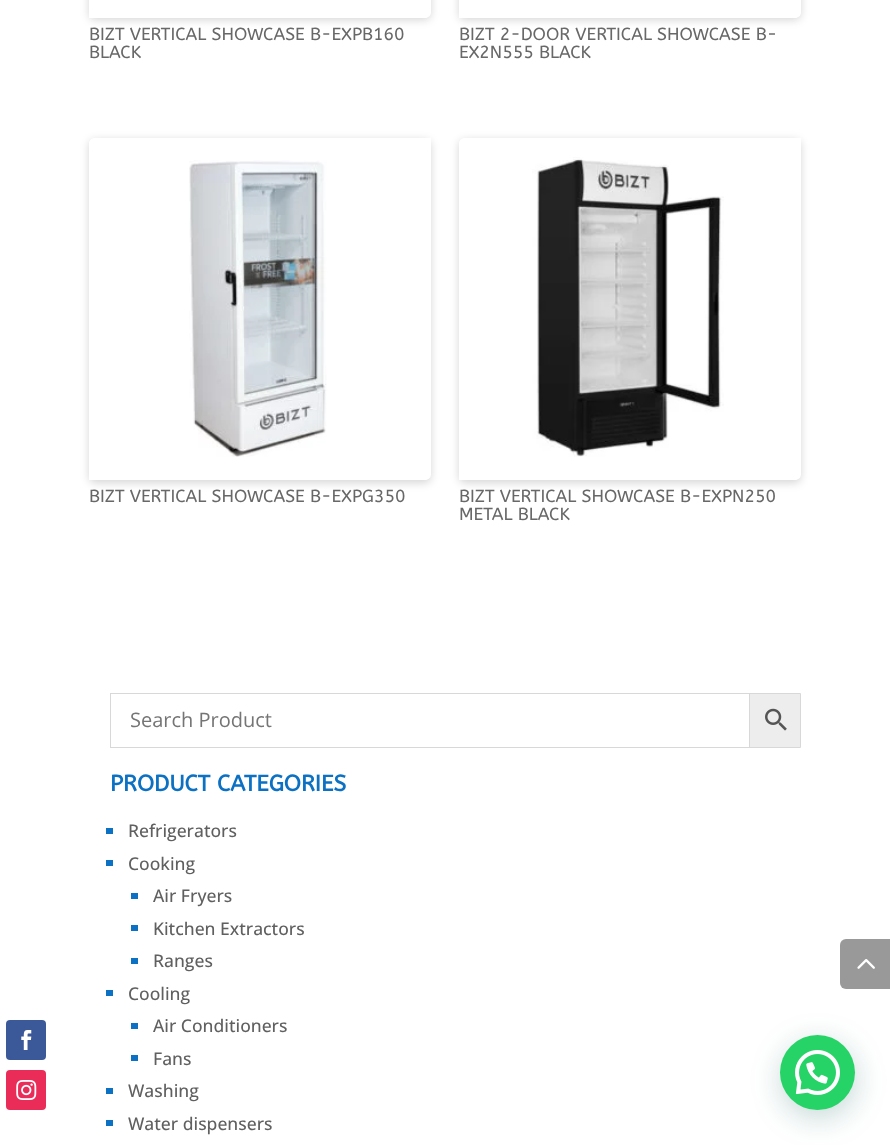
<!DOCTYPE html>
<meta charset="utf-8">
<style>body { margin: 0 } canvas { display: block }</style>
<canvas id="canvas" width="890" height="1145"></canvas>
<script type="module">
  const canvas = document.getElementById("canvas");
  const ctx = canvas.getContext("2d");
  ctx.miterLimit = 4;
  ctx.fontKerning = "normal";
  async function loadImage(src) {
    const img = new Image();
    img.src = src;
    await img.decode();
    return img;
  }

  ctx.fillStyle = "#ffffff";
  ctx.fillRect(0, 0, 890, 1145);
  ctx.fillStyle = "#3b5998";
  ctx.beginPath();
  ctx.roundRect(6, 1020, 40, 40, 4);
  ctx.fill();
  ctx.drawImage(await loadImage("img1.png"), 21, 1030, 11, 20);
  ctx.fillStyle = "#ea2c59";
  ctx.beginPath();
  ctx.roundRect(6, 1070, 40, 40, 4);
  ctx.fill();
  ctx.drawImage(await loadImage("img2.png"), 16, 1080, 21, 20);
  ctx.save();
  ctx.beginPath();
  ctx.moveTo(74, 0);
  ctx.lineTo(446, 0);
  ctx.lineTo(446, 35);
  ctx.lineTo(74, 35);
  ctx.closePath();
  ctx.moveTo(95, -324);
  ctx.lineTo(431, -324);
  ctx.lineTo(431, 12);
  ctx.bezierCurveTo(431, 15.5, 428.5, 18, 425, 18);
  ctx.lineTo(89, 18);
  ctx.lineTo(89, -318);
  ctx.bezierCurveTo(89, -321.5, 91.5, -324, 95, -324);
  ctx.closePath();
  ctx.clip("evenodd");
  ctx.fillStyle = "rgba(0, 0, 0, 0.16)";
  ctx.filter = "blur(4.5px)";
  ctx.beginPath();
  ctx.roundRect(89, -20, 342, 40, 6);
  ctx.fill();
  ctx.filter = "none";
  ctx.restore();
  ctx.font = "17.5px ABeeZee";
  ctx.fillStyle = "#686868";
  ctx.fillText("BIZT VERTICAL SHOWCASE B-EXPB160", 89, 40);
  ctx.fillText("BLACK", 89, 58);
  ctx.save();
  ctx.beginPath();
  ctx.moveTo(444, 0);
  ctx.lineTo(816, 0);
  ctx.lineTo(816, 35);
  ctx.lineTo(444, 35);
  ctx.closePath();
  ctx.moveTo(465, -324);
  ctx.lineTo(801, -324);
  ctx.lineTo(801, 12);
  ctx.bezierCurveTo(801, 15.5, 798.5, 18, 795, 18);
  ctx.lineTo(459, 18);
  ctx.lineTo(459, -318);
  ctx.bezierCurveTo(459, -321.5, 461.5, -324, 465, -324);
  ctx.closePath();
  ctx.clip("evenodd");
  ctx.fillStyle = "rgba(0, 0, 0, 0.16)";
  ctx.filter = "blur(4.5px)";
  ctx.beginPath();
  ctx.roundRect(459, -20, 342, 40, 6);
  ctx.fill();
  ctx.filter = "none";
  ctx.restore();
  ctx.fillText("BIZT 2-DOOR VERTICAL SHOWCASE B-", 459, 40);
  ctx.fillText("EX2N555 BLACK", 459, 58);
  ctx.save();
  ctx.beginPath();
  ctx.moveTo(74, 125);
  ctx.lineTo(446, 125);
  ctx.lineTo(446, 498);
  ctx.lineTo(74, 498);
  ctx.closePath();
  ctx.moveTo(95, 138);
  ctx.lineTo(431, 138);
  ctx.lineTo(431, 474);
  ctx.bezierCurveTo(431, 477.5, 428.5, 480, 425, 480);
  ctx.lineTo(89, 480);
  ctx.lineTo(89, 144);
  ctx.bezierCurveTo(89, 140.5, 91.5, 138, 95, 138);
  ctx.closePath();
  ctx.clip("evenodd");
  ctx.fillStyle = "rgba(0, 0, 0, 0.16)";
  ctx.filter = "blur(4.5px)";
  ctx.beginPath();
  ctx.roundRect(89, 140, 342, 343, 6);
  ctx.fill();
  ctx.filter = "none";
  ctx.restore();
  ctx.drawImage(await loadImage("img3.png"), 189, 160, 138, 297);
  ctx.fillText("BIZT VERTICAL SHOWCASE B-EXPG350", 89, 502);
  ctx.save();
  ctx.beginPath();
  ctx.moveTo(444, 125);
  ctx.lineTo(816, 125);
  ctx.lineTo(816, 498);
  ctx.lineTo(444, 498);
  ctx.closePath();
  ctx.moveTo(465, 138);
  ctx.lineTo(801, 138);
  ctx.lineTo(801, 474);
  ctx.bezierCurveTo(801, 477.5, 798.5, 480, 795, 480);
  ctx.lineTo(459, 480);
  ctx.lineTo(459, 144);
  ctx.bezierCurveTo(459, 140.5, 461.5, 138, 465, 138);
  ctx.closePath();
  ctx.clip("evenodd");
  ctx.fillStyle = "rgba(0, 0, 0, 0.16)";
  ctx.filter = "blur(4.5px)";
  ctx.beginPath();
  ctx.roundRect(459, 140, 342, 343, 6);
  ctx.fill();
  ctx.filter = "none";
  ctx.restore();
  ctx.drawImage(await loadImage("img4.png"), 532, 157, 192, 300);
  ctx.fillText("BIZT VERTICAL SHOWCASE B-EXPN250", 459, 502);
  ctx.fillText("METAL BLACK", 459, 520);
  ctx.fillStyle = "#ededed";
  ctx.beginPath();
  ctx.rect(749.5, 693.5, 51, 54);
  ctx.fill();
  ctx.strokeStyle = "#d8d8d8";
  ctx.stroke();
  ctx.strokeRect(110.5, 693.5, 639, 54);
  ctx.font = "20px Open Sans";
  ctx.fillStyle = "#757575";
  ctx.fillText("Search Product", 130, 727);
  ctx.drawImage(await loadImage("img5.png"), 765, 708, 22, 23);
  ctx.font = "bold 22.5px ABeeZee";
  ctx.fillStyle = "#0c71c3";
  ctx.fillText("PRODUCT CATEGORIES", 110, 791);
  ctx.fillRect(106, 828, 7, 6);
  ctx.font = "500 17.5px Open Sans";
  ctx.fillStyle = "#606060";
  ctx.fillText("Refrigerators", 128, 837);
  ctx.fillStyle = "#0c71c3";
  ctx.fillRect(106, 860, 7, 6);
  ctx.fillStyle = "#606060";
  ctx.fillText("Cooking", 128, 870);
  ctx.fillStyle = "#0c71c3";
  ctx.fillRect(131, 893, 7, 6);
  ctx.fillStyle = "#606060";
  ctx.fillText("Air Fryers", 153, 902);
  ctx.fillStyle = "#0c71c3";
  ctx.fillRect(131, 925, 7, 6);
  ctx.fillStyle = "#606060";
  ctx.fillText("Kitchen Extractors", 153, 935);
  ctx.fillStyle = "#0c71c3";
  ctx.fillRect(131, 958, 7, 6);
  ctx.fillStyle = "#606060";
  ctx.fillText("Ranges", 153, 967);
  ctx.fillStyle = "#0c71c3";
  ctx.fillRect(106, 990, 7, 6);
  ctx.fillStyle = "#606060";
  ctx.fillText("Cooling", 128, 1000);
  ctx.fillStyle = "#0c71c3";
  ctx.fillRect(131, 1023, 7, 6);
  ctx.fillStyle = "#606060";
  ctx.fillText("Air Conditioners", 153, 1032);
  ctx.fillStyle = "#0c71c3";
  ctx.fillRect(131, 1055, 7, 6);
  ctx.fillStyle = "#606060";
  ctx.fillText("Fans", 153, 1065);
  ctx.fillStyle = "#0c71c3";
  ctx.fillRect(106, 1088, 7, 6);
  ctx.fillStyle = "#606060";
  ctx.fillText("Washing", 128, 1097);
  ctx.fillStyle = "#0c71c3";
  ctx.fillRect(106, 1120, 7, 6);
  ctx.fillStyle = "#606060";
  ctx.fillText("Water dispensers", 128, 1130);
  ctx.fillStyle = "#999999";
  ctx.beginPath();
  ctx.roundRect(840, 939, 50, 50, [6, 0, 0, 6]);
  ctx.fill();
  ctx.drawImage(await loadImage("img6.png"), 857, 959, 18, 10);
  ctx.fillStyle = "rgba(7, 94, 84, 0.24)";
  ctx.filter = "blur(15px)";
  ctx.beginPath();
  ctx.roundRect(781, 1043, 75, 75, 37.5);
  ctx.fill();
  ctx.filter = "none";
  ctx.fillStyle = "#25d366";
  ctx.beginPath();
  ctx.arc(817.5, 1072.5, 37.5, 0, Math.PI * 2);
  ctx.fill();
  ctx.drawImage(await loadImage("img7.png"), 795, 1050, 45, 45);
</script>
